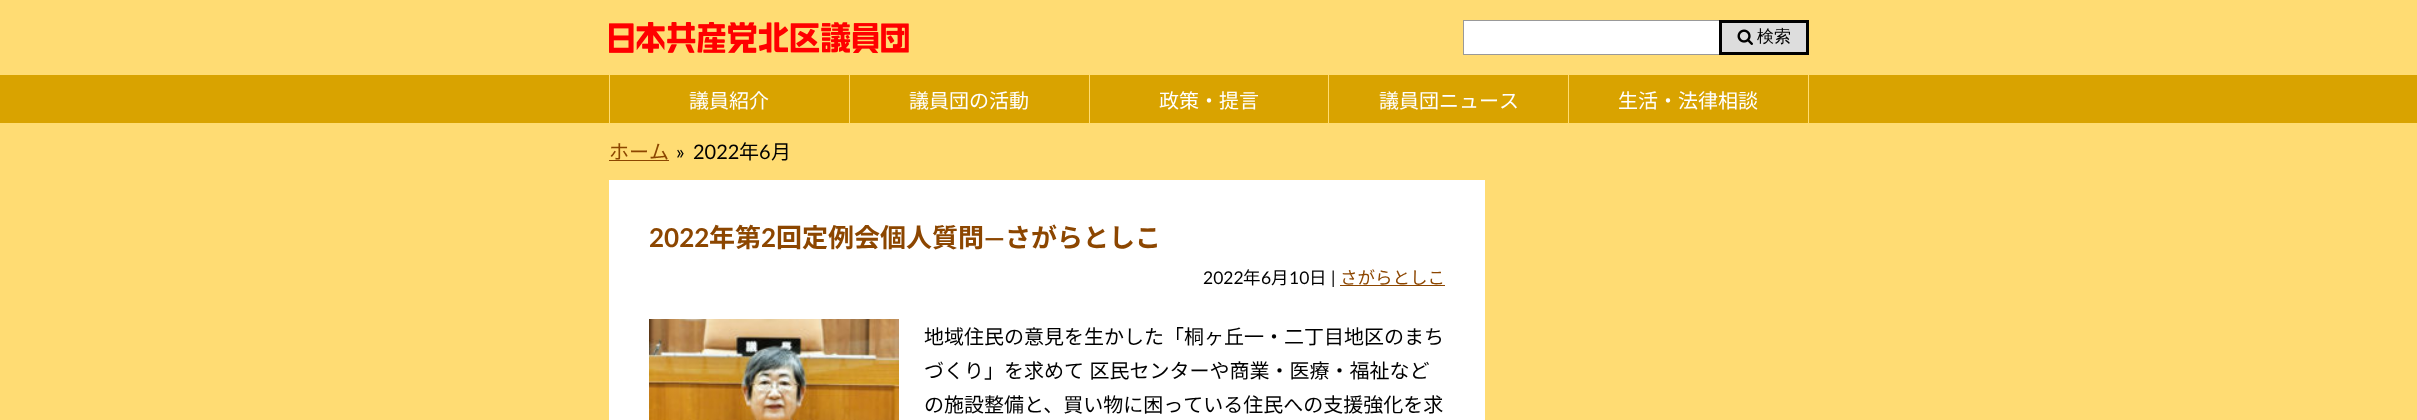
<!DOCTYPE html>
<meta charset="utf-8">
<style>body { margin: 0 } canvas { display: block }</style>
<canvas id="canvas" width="2417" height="420"></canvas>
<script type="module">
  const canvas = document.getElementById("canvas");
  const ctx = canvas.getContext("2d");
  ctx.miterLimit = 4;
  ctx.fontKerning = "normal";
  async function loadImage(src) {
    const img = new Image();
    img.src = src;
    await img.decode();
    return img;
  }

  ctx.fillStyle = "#ffdc73";
  ctx.fillRect(0, 0, 2417, 420);
  ctx.drawImage(await loadImage("img1.png"), 609, 22, 300, 32);
  ctx.fillStyle = "#ffffff";
  ctx.fillRect(1464, 21, 255, 33);
  ctx.fillStyle = "#999999";
  ctx.fillRect(1463, 20, 256, 1);
  ctx.fillRect(1463, 54, 256, 1);
  ctx.fillRect(1463, 20, 1, 35);
  ctx.fillStyle = "#dddddd";
  ctx.beginPath();
  ctx.rect(1720.5, 21.5, 87, 32);
  ctx.fill();
  ctx.strokeStyle = "#000000";
  ctx.lineWidth = 3;
  ctx.stroke();
  ctx.drawImage(await loadImage("img2.png"), 1737, 29, 16, 16);
  ctx.font = "500 17px WenQuanYi Zen Hei";
  ctx.fillStyle = "#000000";
  ctx.fillText("検索", 1757, 42);
  ctx.fillStyle = "#d9a300";
  ctx.fillRect(0, 75, 2417, 48);
  ctx.fillStyle = "#ffdc73";
  ctx.fillRect(609, 75, 1, 48);
  ctx.font = "20px Noto Sans JP";
  ctx.fillStyle = "#ffffff";
  ctx.fillText("議員紹介", 689, 108);
  ctx.fillStyle = "#ffdc73";
  ctx.fillRect(849, 75, 1, 48);
  ctx.fillStyle = "#ffffff";
  ctx.fillText("議員団の活動", 909, 108);
  ctx.fillStyle = "#ffdc73";
  ctx.fillRect(1089, 75, 1, 48);
  ctx.fillStyle = "#ffffff";
  ctx.fillText("政策・提言", 1159, 108);
  ctx.fillStyle = "#ffdc73";
  ctx.fillRect(1328, 75, 1, 48);
  ctx.fillStyle = "#ffffff";
  ctx.fillText("議員団ニュース", 1379, 108);
  ctx.fillStyle = "#ffdc73";
  ctx.fillRect(1808, 75, 1, 48);
  ctx.fillRect(1568, 75, 1, 48);
  ctx.fillStyle = "#ffffff";
  ctx.fillText("生活・法律相談", 1618, 108);
  ctx.fillStyle = "#8c4600";
  ctx.fillText("ホーム", 609, 159);
  ctx.fillRect(609, 160, 60, 1);
  ctx.font = "20px Lato";
  ctx.fillStyle = "#000000";
  ctx.fillText("»", 676, 159);
  ctx.fillText("2022", 693, 159);
  ctx.font = "20px Noto Sans JP";
  ctx.fillText("年", 739, 159);
  ctx.font = "20px Lato";
  ctx.fillText("6", 759, 159);
  ctx.font = "20px Noto Sans JP";
  ctx.fillText("月", 771, 159);
  ctx.fillStyle = "#ffffff";
  ctx.fillRect(609, 180, 876, 240);
  ctx.font = "bold 26px Lato";
  ctx.fillStyle = "#8c4600";
  ctx.fillText("2022", 649, 247);
  ctx.font = "bold 26px Noto Sans JP";
  ctx.fillText("年第", 709, 247);
  ctx.font = "bold 26px Lato";
  ctx.fillText("2", 761, 247);
  ctx.font = "bold 26px Noto Sans JP";
  ctx.fillText("回定例会個人質問", 776, 247);
  ctx.font = "bold 26px Lato";
  ctx.fillText("―", 984, 247);
  ctx.font = "bold 26px Noto Sans JP";
  ctx.fillText("さがらとしこ", 1005, 247);
  ctx.font = "17.5px Lato";
  ctx.fillStyle = "#000000";
  ctx.fillText("2022", 1203, 284);
  ctx.font = "17.5px Noto Sans JP";
  ctx.fillText("年", 1243, 284);
  ctx.font = "17.5px Lato";
  ctx.fillText("6", 1261, 284);
  ctx.font = "17.5px Noto Sans JP";
  ctx.fillText("月", 1271, 284);
  ctx.font = "17.5px Lato";
  ctx.fillText("10", 1289, 284);
  ctx.font = "17.5px Noto Sans JP";
  ctx.fillText("日", 1309, 284);
  ctx.font = "17.5px Lato";
  ctx.fillText("|", 1331, 284);
  ctx.font = "17.5px Noto Sans JP";
  ctx.fillStyle = "#8c4600";
  ctx.fillText("さがらとしこ", 1340, 284);
  ctx.fillRect(1340, 285, 105, 1);
  ctx.drawImage(await loadImage("img3.png"), 649, 319, 250, 101);
  ctx.font = "20px Noto Sans JP";
  ctx.fillStyle = "#000000";
  ctx.fillText("地域住民の意見を生かした「桐ヶ丘一・二丁目地区のまち", 924, 344);
  ctx.wordSpacing = "1px";
  ctx.fillText("づくり」を求めて 区民センターや商業・医療・福祉など", 924, 378);
  ctx.wordSpacing = "0px";
  ctx.fillText("の施設整備と、買い物に困っている住民への支援強化を求", 924, 412);
</script>
